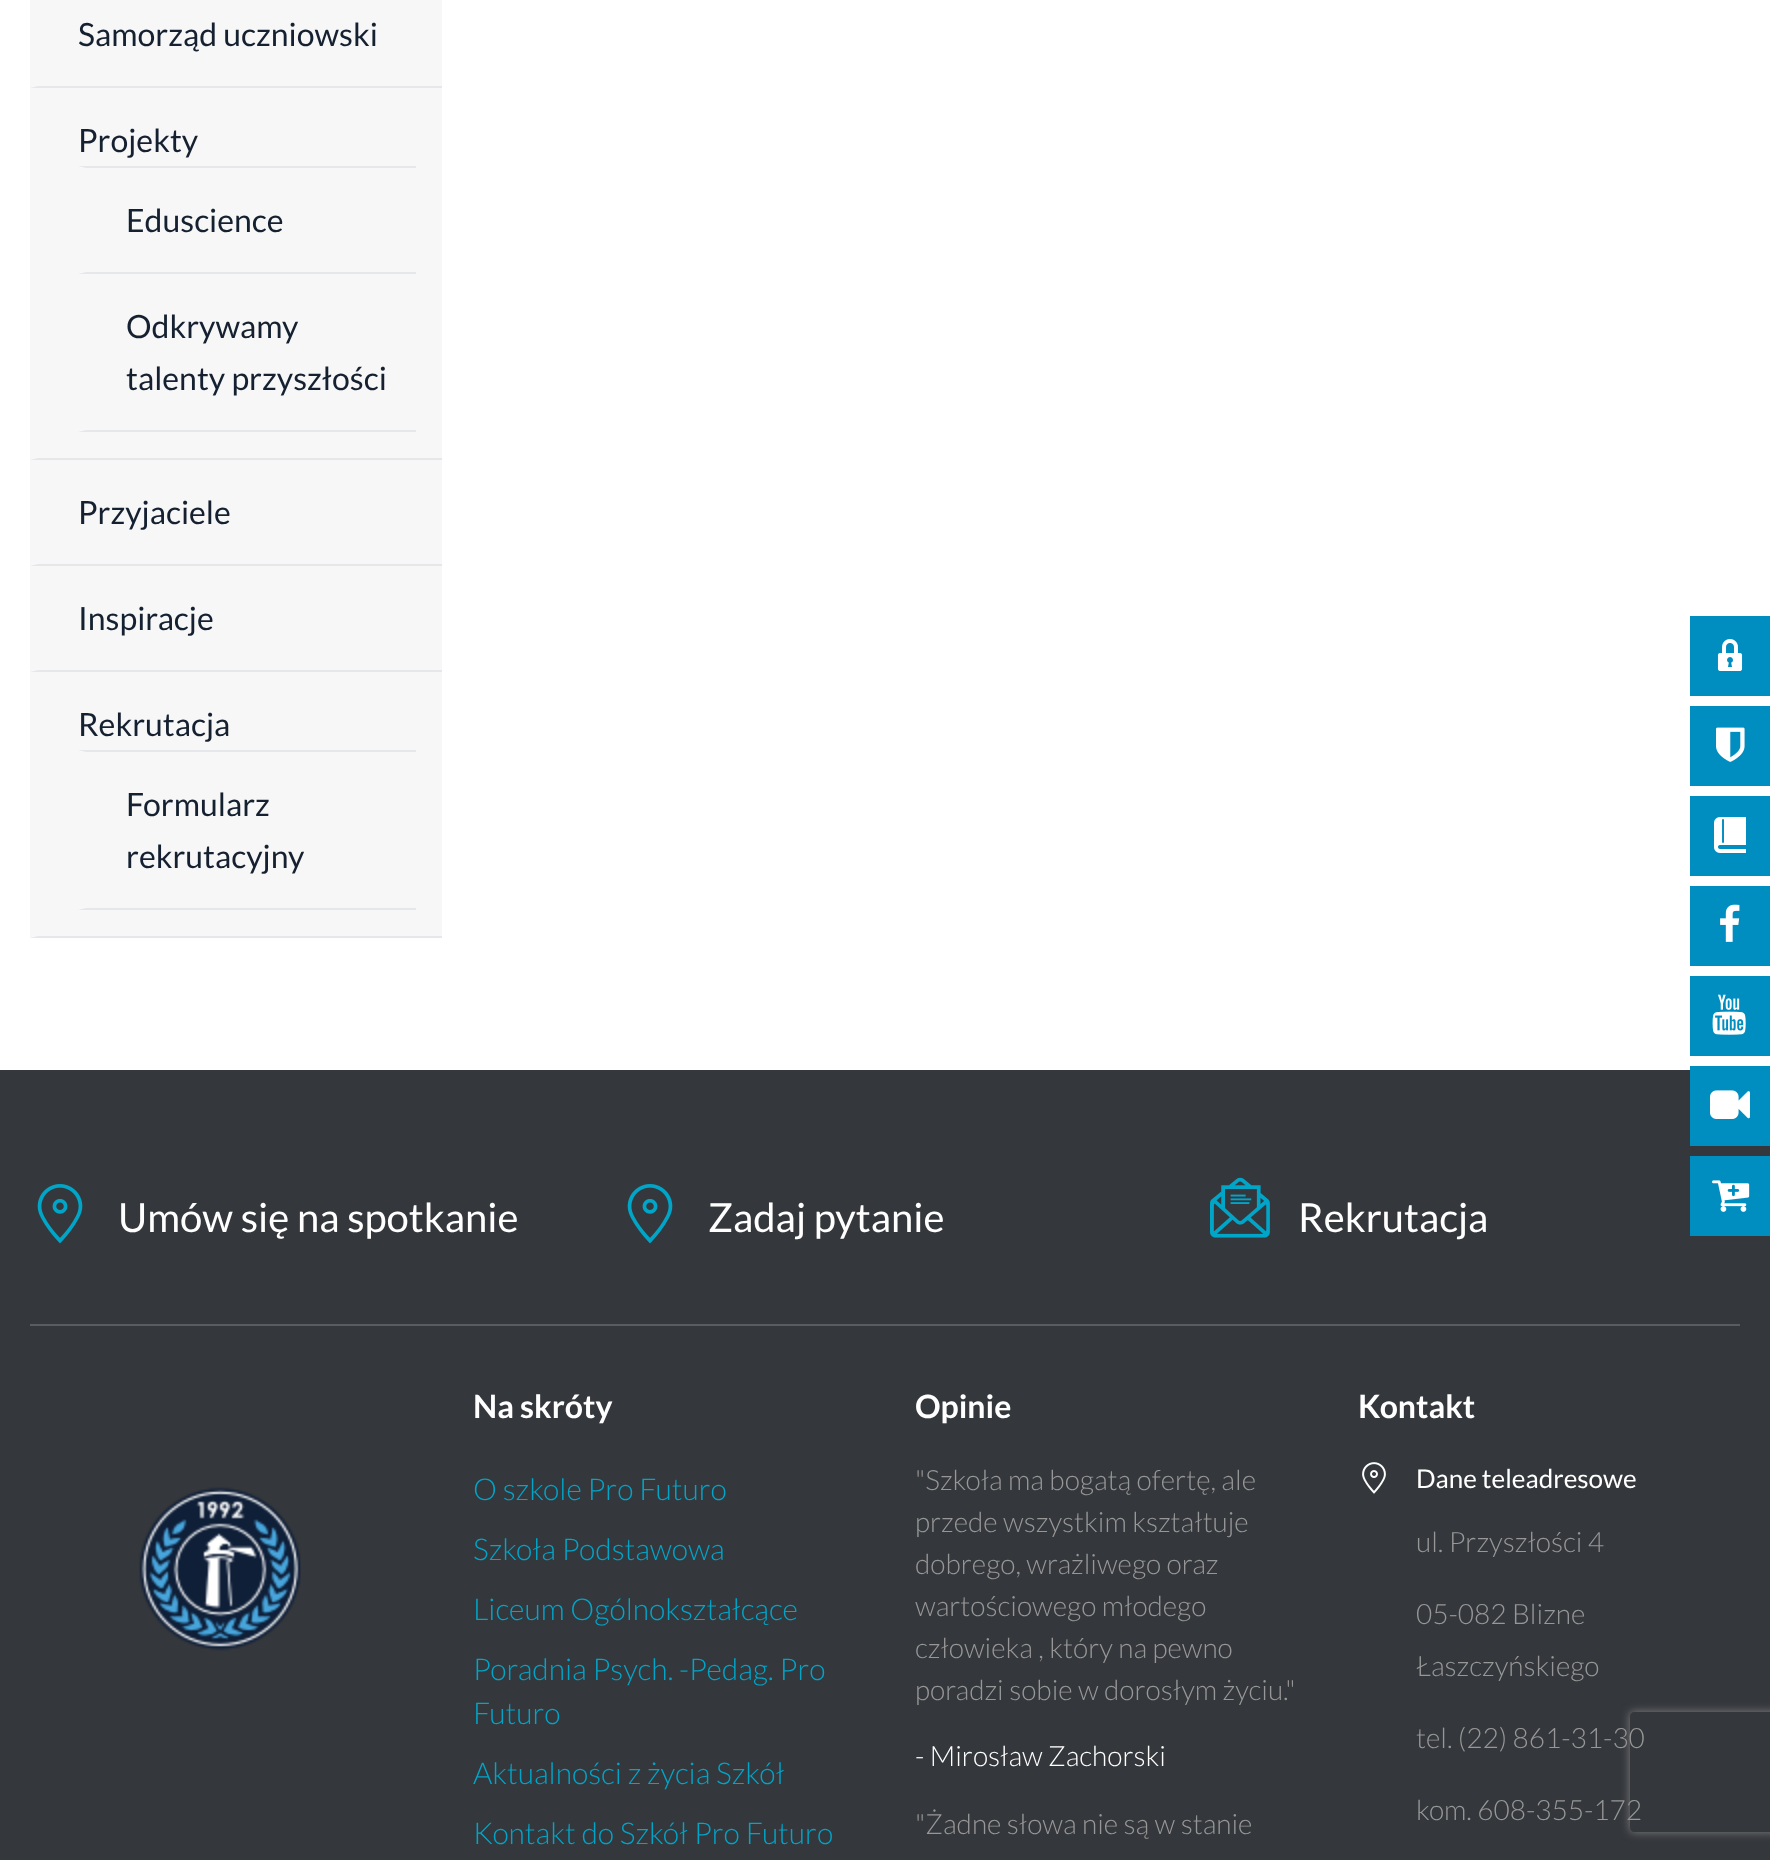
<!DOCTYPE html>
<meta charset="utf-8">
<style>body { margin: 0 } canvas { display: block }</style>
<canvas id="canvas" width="1770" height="1860"></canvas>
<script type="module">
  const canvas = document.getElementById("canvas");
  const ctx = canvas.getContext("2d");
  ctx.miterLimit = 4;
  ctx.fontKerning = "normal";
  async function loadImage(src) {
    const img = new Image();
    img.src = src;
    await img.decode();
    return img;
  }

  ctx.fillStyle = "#ffffff";
  ctx.fillRect(0, 0, 1770, 1860);
  ctx.fillStyle = "#f7f7f7";
  ctx.fillRect(30, 0, 412, 938);
  ctx.fillStyle = "#e6e7eb";
  ctx.beginPath();
  ctx.moveTo(442, 88);
  ctx.lineTo(30, 88);
  ctx.lineTo(38, 86);
  ctx.lineTo(442, 86);
  ctx.closePath();
  ctx.fill();
  ctx.font = "32px Lato";
  ctx.fillStyle = "#152130";
  ctx.fillText("Samorząd uczniowski", 78, 46);
  ctx.fillStyle = "#e6e7eb";
  ctx.beginPath();
  ctx.moveTo(442, 460);
  ctx.lineTo(30, 460);
  ctx.lineTo(38, 458);
  ctx.lineTo(442, 458);
  ctx.closePath();
  ctx.fill();
  ctx.fillStyle = "#152130";
  ctx.fillText("Projekty", 78, 152);
  ctx.fillStyle = "#e6e7eb";
  ctx.beginPath();
  ctx.moveTo(78, 166);
  ctx.lineTo(416, 166);
  ctx.lineTo(416, 168);
  ctx.lineTo(86, 168);
  ctx.closePath();
  ctx.fill();
  ctx.beginPath();
  ctx.moveTo(416, 274);
  ctx.lineTo(78, 274);
  ctx.lineTo(86, 272);
  ctx.lineTo(416, 272);
  ctx.closePath();
  ctx.fill();
  ctx.fillStyle = "#152130";
  ctx.fillText("Eduscience", 126, 232);
  ctx.fillStyle = "#e6e7eb";
  ctx.beginPath();
  ctx.moveTo(416, 432);
  ctx.lineTo(78, 432);
  ctx.lineTo(86, 430);
  ctx.lineTo(416, 430);
  ctx.closePath();
  ctx.fill();
  ctx.fillStyle = "#152130";
  ctx.fillText("Odkrywamy", 126, 338);
  ctx.fillText("talenty przyszłości", 126, 390);
  ctx.fillStyle = "#e6e7eb";
  ctx.beginPath();
  ctx.moveTo(442, 566);
  ctx.lineTo(30, 566);
  ctx.lineTo(38, 564);
  ctx.lineTo(442, 564);
  ctx.closePath();
  ctx.fill();
  ctx.fillStyle = "#152130";
  ctx.fillText("Przyjaciele", 78, 524);
  ctx.fillStyle = "#e6e7eb";
  ctx.beginPath();
  ctx.moveTo(442, 672);
  ctx.lineTo(30, 672);
  ctx.lineTo(38, 670);
  ctx.lineTo(442, 670);
  ctx.closePath();
  ctx.fill();
  ctx.fillStyle = "#152130";
  ctx.fillText("Inspiracje", 78, 630);
  ctx.fillStyle = "#e6e7eb";
  ctx.beginPath();
  ctx.moveTo(442, 938);
  ctx.lineTo(30, 938);
  ctx.lineTo(38, 936);
  ctx.lineTo(442, 936);
  ctx.closePath();
  ctx.fill();
  ctx.fillStyle = "#152130";
  ctx.fillText("Rekrutacja", 78, 736);
  ctx.fillStyle = "#e6e7eb";
  ctx.beginPath();
  ctx.moveTo(78, 750);
  ctx.lineTo(416, 750);
  ctx.lineTo(416, 752);
  ctx.lineTo(86, 752);
  ctx.closePath();
  ctx.fill();
  ctx.beginPath();
  ctx.moveTo(416, 910);
  ctx.lineTo(78, 910);
  ctx.lineTo(86, 908);
  ctx.lineTo(416, 908);
  ctx.closePath();
  ctx.fill();
  ctx.fillStyle = "#152130";
  ctx.fillText("Formularz", 126, 816);
  ctx.fillText("rekrutacyjny", 126, 868);
  ctx.fillStyle = "#008ec1";
  ctx.fillRect(1690, 616, 80, 80);
  ctx.drawImage(await loadImage("img1.png"), 1717, 639, 26, 32);
  ctx.fillRect(1690, 706, 80, 80);
  ctx.drawImage(await loadImage("img2.png"), 1716, 727, 29, 35);
  ctx.fillRect(1690, 796, 80, 80);
  ctx.drawImage(await loadImage("img3.png"), 1714, 817, 32, 36);
  ctx.fillRect(1690, 886, 80, 80);
  ctx.drawImage(await loadImage("img4.png"), 1720, 904, 20, 38);
  ctx.fillRect(1690, 976, 80, 80);
  ctx.drawImage(await loadImage("img5.png"), 1712, 994, 34, 41);
  ctx.fillStyle = "#34373c";
  ctx.fillRect(0, 1070, 1770, 790);
  ctx.fillStyle = "#008ec1";
  ctx.fillRect(1690, 1066, 80, 80);
  ctx.drawImage(await loadImage("img6.png"), 1710, 1090, 40, 29);
  ctx.fillRect(1690, 1156, 80, 80);
  ctx.drawImage(await loadImage("img7.png"), 1712, 1180, 38, 32);
  ctx.drawImage(await loadImage("img8.png"), 37, 1184, 46, 60);
  ctx.font = "40px Lato";
  ctx.fillStyle = "#ffffff";
  ctx.fillText("Umów się na spotkanie", 118, 1232);
  ctx.drawImage(await loadImage("img8.png"), 627, 1184, 46, 60);
  ctx.fillText("Zadaj pytanie", 708, 1232);
  ctx.drawImage(await loadImage("img9.png"), 1210, 1177, 60, 61);
  ctx.fillText("Rekrutacja", 1298, 1232);
  ctx.fillStyle = "#5a5c60";
  ctx.fillRect(30, 1324, 1710, 2);
  ctx.drawImage(await loadImage("img10.png"), 139, 1487, 162, 164);
  ctx.font = "bold 32px Lato";
  ctx.fillStyle = "#ffffff";
  ctx.fillText("Na skróty", 473, 1418);
  ctx.font = "300 30px Lato";
  ctx.fillStyle = "#00a5c8";
  ctx.fillText("O szkole Pro Futuro", 473, 1500);
  ctx.fillText("Szkoła Podstawowa", 473, 1560);
  ctx.fillText("Liceum Ogólnokształcące", 473, 1620);
  ctx.fillText("Poradnia Psych. -Pedag. Pro", 473, 1680);
  ctx.fillText("Futuro", 473, 1724);
  ctx.fillText("Aktualności z życia Szkół", 473, 1784);
  ctx.fillText("Kontakt do Szkół Pro Futuro", 473, 1844);
  ctx.font = "bold 32px Lato";
  ctx.fillStyle = "#ffffff";
  ctx.fillText("Opinie", 915, 1418);
  ctx.font = "300 28px Lato";
  ctx.fillStyle = "#989797";
  ctx.fillText("\"Szkoła ma bogatą ofertę, ale", 915, 1490);
  ctx.fillText("przede wszystkim kształtuje", 915, 1532);
  ctx.fillText("dobrego, wrażliwego oraz", 915, 1574);
  ctx.fillText("wartościowego młodego", 915, 1616);
  ctx.fillText("człowieka , który na pewno", 915, 1658);
  ctx.fillText("poradzi sobie w dorosłym życiu.\"", 915, 1700);
  ctx.fillStyle = "#ffffff";
  ctx.fillText("- Mirosław Zachorski", 915, 1766);
  ctx.fillStyle = "#989797";
  ctx.fillText("\"Żadne słowa nie są w stanie", 915, 1834);
  ctx.font = "bold 32px Lato";
  ctx.fillStyle = "#ffffff";
  ctx.fillText("Kontakt", 1358, 1418);
  ctx.drawImage(await loadImage("img11.png"), 1362, 1462, 24, 32);
  ctx.font = "26px Lato";
  ctx.fillText("Dane teleadresowe", 1416, 1488);
  ctx.font = "300 28px Lato";
  ctx.fillStyle = "#989797";
  ctx.fillText("ul. Przyszłości 4", 1416, 1552);
  ctx.fillText("05-082 Blizne", 1416, 1624);
  ctx.fillText("Łaszczyńskiego", 1416, 1676);
  ctx.fillText("tel. (22) 861-31-30", 1416, 1748);
  ctx.fillText("kom. 608-355-172", 1416, 1820);
  ctx.save();
  ctx.beginPath();
  ctx.moveTo(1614, 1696);
  ctx.lineTo(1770, 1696);
  ctx.lineTo(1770, 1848);
  ctx.lineTo(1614, 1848);
  ctx.closePath();
  ctx.moveTo(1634, 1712);
  ctx.lineTo(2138, 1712);
  ctx.bezierCurveTo(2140, 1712, 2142, 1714, 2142, 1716);
  ctx.lineTo(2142, 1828);
  ctx.bezierCurveTo(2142, 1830, 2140, 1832, 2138, 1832);
  ctx.lineTo(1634, 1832);
  ctx.bezierCurveTo(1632, 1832, 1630, 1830, 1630, 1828);
  ctx.lineTo(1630, 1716);
  ctx.bezierCurveTo(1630, 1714, 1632, 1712, 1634, 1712);
  ctx.closePath();
  ctx.clip("evenodd");
  ctx.fillStyle = "#808080";
  ctx.filter = "blur(5px)";
  ctx.beginPath();
  ctx.roundRect(1630, 1712, 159, 120, 4);
  ctx.fill();
  ctx.filter = "none";
  ctx.restore();
</script>
